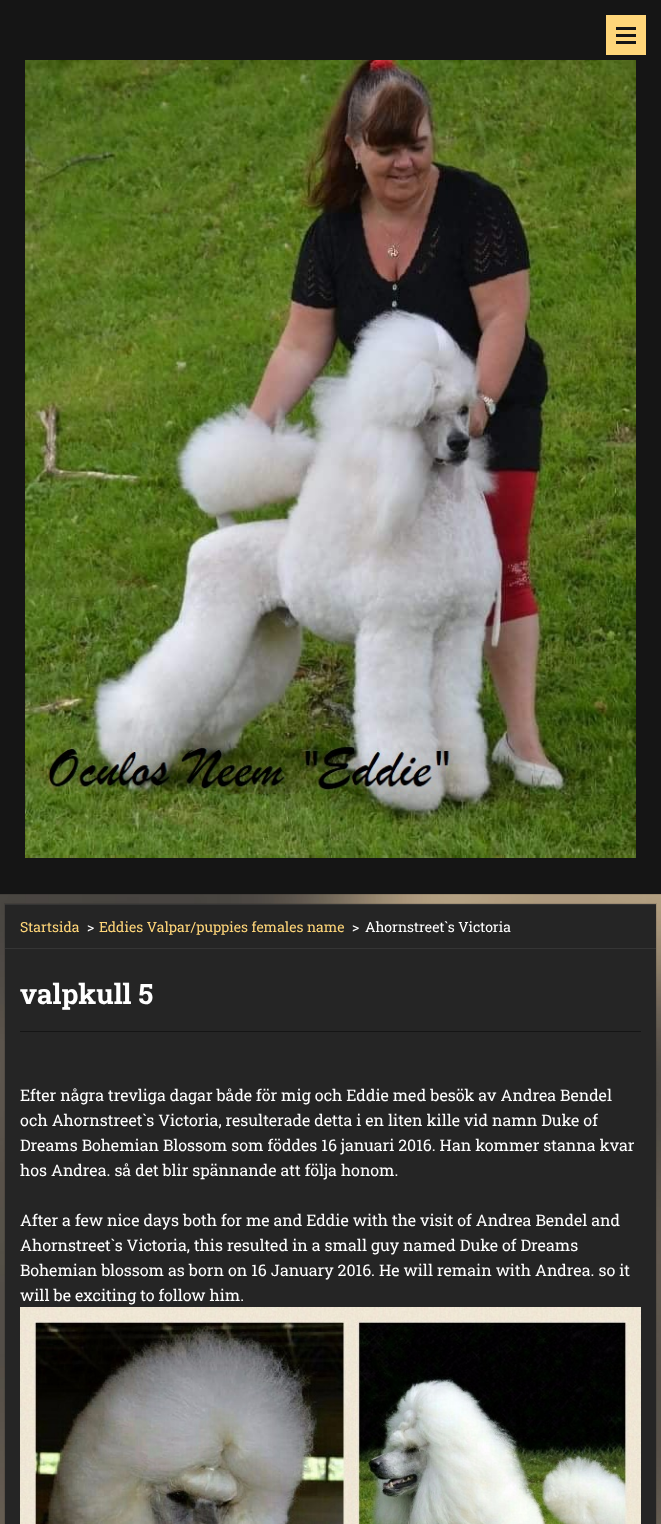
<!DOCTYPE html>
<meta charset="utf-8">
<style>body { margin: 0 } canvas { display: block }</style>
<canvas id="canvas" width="661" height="1524"></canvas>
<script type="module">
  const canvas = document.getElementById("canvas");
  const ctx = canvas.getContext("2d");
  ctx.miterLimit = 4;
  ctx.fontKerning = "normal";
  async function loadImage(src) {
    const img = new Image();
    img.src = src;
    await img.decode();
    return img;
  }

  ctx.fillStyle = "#ffffff";
  ctx.fillRect(0, 0, 661, 1524);
  ctx.drawImage(await loadImage("img1.png"), 0, 894, 661, 630);
  ctx.fillStyle = "#151515";
  ctx.fillRect(0, 0, 661, 894);
  ctx.strokeStyle = "rgba(0, 0, 0, 0.1)";
  ctx.strokeRect(-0.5, -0.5, 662, 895);
  ctx.fillStyle = "#ffd679";
  ctx.fillRect(606, 15, 40, 40);
  ctx.fillStyle = "#151515";
  ctx.fillRect(616, 27, 20, 3);
  ctx.fillRect(616, 34, 20, 3);
  ctx.fillRect(616, 41, 20, 3);
  ctx.drawImage(await loadImage("img2.png"), 25, 60, 611, 798);
  ctx.fillStyle = "#252525";
  ctx.fillRect(5, 905, 651, 43);
  ctx.fillStyle = "#353535";
  ctx.fillRect(5, 904, 651, 1);
  ctx.strokeRect(4.5, 903.5, 652, 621);
  ctx.font = "14px Roboto Slab";
  ctx.fillStyle = "#ffd679";
  ctx.fillText("Startsida", 20, 932);
  ctx.fillStyle = "#ffffff";
  ctx.fillText(">", 87, 932);
  ctx.fillStyle = "#ffd679";
  ctx.fillText("Eddies Valpar/puppies females name", 99, 932);
  ctx.fillStyle = "#ffffff";
  ctx.fillText(">", 352, 932);
  ctx.fillText("Ahornstreet`s Victoria", 365, 932);
  ctx.fillStyle = "#353535";
  ctx.fillRect(5, 948, 651, 1);
  ctx.fillStyle = "#252525";
  ctx.fillRect(5, 949, 651, 575);
  ctx.fillStyle = "#151515";
  ctx.fillRect(20, 1031, 621, 1);
  ctx.font = "bold 28px Roboto Slab";
  ctx.fillStyle = "#ffffff";
  ctx.fillText("valpkull 5", 20, 1004);
  ctx.font = "16px Roboto Slab";
  ctx.fillText("Efter några trevliga dagar både för mig och Eddie med besök av Andrea Bendel", 20, 1101);
  ctx.fillText("och Ahornstreet`s Victoria, resulterade detta i en liten kille vid namn Duke of", 20, 1126);
  ctx.fillText("Dreams Bohemian Blossom som föddes 16 januari 2016. Han kommer stanna kvar", 20, 1151);
  ctx.fillText("hos Andrea. så det blir spännande att följa honom.", 20, 1176);
  ctx.fillText("After a few nice days both for me and Eddie with the visit of Andrea Bendel and", 20, 1226);
  ctx.fillText("Ahornstreet`s Victoria, this resulted in a small guy named Duke of Dreams", 20, 1251);
  ctx.fillText("Bohemian blossom as born on 16 January 2016. He will remain with Andrea. so it", 20, 1276);
  ctx.fillText("will be exciting to follow him.", 20, 1301);
  ctx.drawImage(await loadImage("img3.png"), 20, 1307, 621, 217);
</script>
